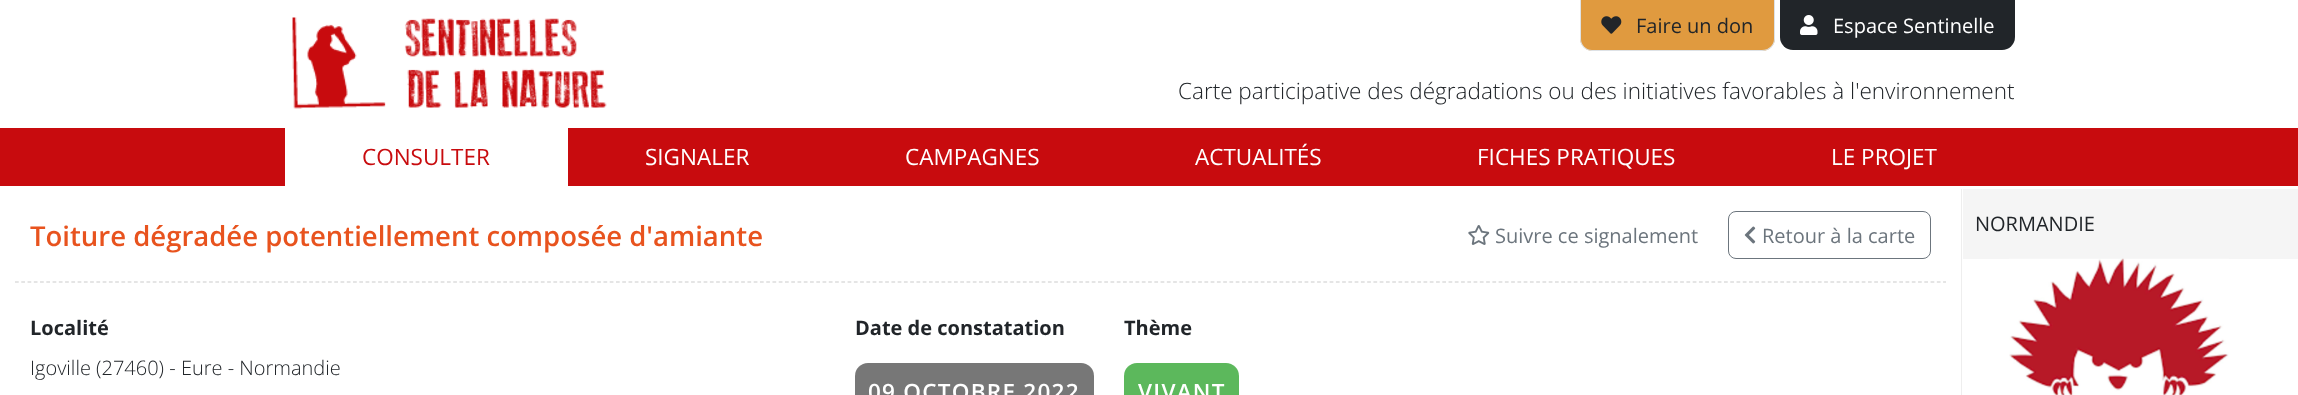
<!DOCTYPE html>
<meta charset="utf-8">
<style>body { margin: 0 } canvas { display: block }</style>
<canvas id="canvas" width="2298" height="395"></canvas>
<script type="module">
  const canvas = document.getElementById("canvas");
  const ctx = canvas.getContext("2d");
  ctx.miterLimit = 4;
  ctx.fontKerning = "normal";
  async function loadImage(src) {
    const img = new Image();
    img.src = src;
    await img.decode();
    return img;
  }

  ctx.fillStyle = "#ffffff";
  ctx.fillRect(0, 0, 2298, 395);
  ctx.drawImage(await loadImage("img1.png"), 292, 17, 315, 92);
  ctx.fillStyle = "#e09a3f";
  ctx.beginPath();
  ctx.roundRect(1580, 0, 195, 51, [0, 0, 13, 13]);
  ctx.fill();
  ctx.fillStyle = "#dee2e6";
  ctx.beginPath();
  ctx.moveTo(1580, 0);
  ctx.lineTo(1775, 0);
  ctx.lineTo(1775, 39);
  ctx.bezierCurveTo(1775, 46, 1769, 51, 1762, 51);
  ctx.lineTo(1592, 51);
  ctx.bezierCurveTo(1586, 51, 1580, 46, 1580, 39);
  ctx.closePath();
  ctx.moveTo(1581, 0);
  ctx.lineTo(1774, 0);
  ctx.lineTo(1774, 39);
  ctx.bezierCurveTo(1774, 45, 1769, 50, 1762, 50);
  ctx.lineTo(1592, 50);
  ctx.bezierCurveTo(1586, 50, 1581, 45, 1581, 39);
  ctx.closePath();
  ctx.fill("evenodd");
  ctx.drawImage(await loadImage("img2.png"), 1601, 16, 21, 18);
  ctx.font = "20px Open Sans";
  ctx.fillStyle = "#212529";
  ctx.fillText("Faire un don", 1636, 33);
  ctx.beginPath();
  ctx.roundRect(1780, 0, 235, 50, [0, 0, 13, 13]);
  ctx.fill();
  ctx.drawImage(await loadImage("img3.png"), 1800, 15, 18, 20);
  ctx.fillStyle = "#ffffff";
  ctx.fillText("Espace Sentinelle", 1833, 33);
  ctx.font = "300 22.5px Open Sans";
  ctx.fillStyle = "#212529";
  ctx.fillText("Carte participative des dégradations ou des initiatives favorables à l'environnement", 1178, 99);
  ctx.fillStyle = "#c80b0e";
  ctx.fillRect(0, 128, 2298, 58);
  ctx.fillStyle = "#ffffff";
  ctx.fillRect(285, 128, 283, 58);
  ctx.font = "22.5px Open Sans";
  ctx.fillStyle = "#c80b0e";
  ctx.fillText("CONSULTER", 362, 165);
  ctx.fillStyle = "#ffffff";
  ctx.fillText("SIGNALER", 645, 165);
  ctx.fillText("CAMPAGNES", 905, 165);
  ctx.fillText("ACTUALITÉS", 1195, 165);
  ctx.fillText("FICHES PRATIQUES", 1477, 165);
  ctx.fillText("LE PROJET", 1831, 165);
  ctx.beginPath();
  ctx.moveTo(15, 282);
  ctx.lineTo(1946, 282);
  ctx.strokeStyle = "#cccccc";
  ctx.lineWidth = 1.2;
  ctx.setLineDash([3.75, 2.51]);
  ctx.stroke();
  ctx.font = "600 27.5px Open Sans";
  ctx.fillStyle = "#e8531e";
  ctx.fillText("Toiture dégradée potentiellement composée d'amiante", 30, 246);
  ctx.drawImage(await loadImage("img4.png"), 1468, 225, 22, 20);
  ctx.font = "20px Open Sans";
  ctx.fillStyle = "#6c757d";
  ctx.fillText("Suivre ce signalement", 1495, 243);
  ctx.beginPath();
  ctx.roundRect(1728.5, 211.5, 202, 47, 7.5);
  ctx.strokeStyle = "#6c757d";
  ctx.lineWidth = 1;
  ctx.setLineDash([]);
  ctx.stroke();
  ctx.drawImage(await loadImage("img5.png"), 1744, 226, 12, 18);
  ctx.fillText("Retour à la carte", 1762, 243);
  ctx.font = "bold 20px Open Sans";
  ctx.fillStyle = "#212529";
  ctx.fillText("Localité", 30, 335);
  ctx.font = "300 20px Open Sans";
  ctx.fillText("Igoville (27460) - Eure - Normandie", 30, 375);
  ctx.font = "bold 20px Open Sans";
  ctx.fillText("Date de constatation", 855, 335);
  ctx.fillStyle = "#777777";
  ctx.beginPath();
  ctx.roundRect(855, 363, 239, 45, 13);
  ctx.fill();
  ctx.letterSpacing = "1.25px";
  ctx.font = "600 22.5px Open Sans";
  ctx.fillStyle = "#ffffff";
  ctx.fillText("09 OCTOBRE 2022", 868, 400);
  ctx.letterSpacing = "0px";
  ctx.font = "bold 20px Open Sans";
  ctx.fillStyle = "#212529";
  ctx.fillText("Thème", 1124, 335);
  ctx.fillStyle = "#5cb85c";
  ctx.beginPath();
  ctx.roundRect(1124, 363, 115, 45, 13);
  ctx.fill();
  ctx.letterSpacing = "1.25px";
  ctx.font = "600 22.5px Open Sans";
  ctx.fillStyle = "#ffffff";
  ctx.fillText("VIVANT", 1138, 400);
  ctx.fillStyle = "#eeeeee";
  ctx.fillRect(1961, 189, 1, 206);
  ctx.fillStyle = "#f5f5f5";
  ctx.fillRect(1963, 189, 335, 70);
  ctx.letterSpacing = "0px";
  ctx.font = "20px Open Sans";
  ctx.fillStyle = "#212529";
  ctx.fillText("NORMANDIE", 1975, 231);
  ctx.drawImage(await loadImage("img6.png"), 2009, 258, 220, 137);
</script>
